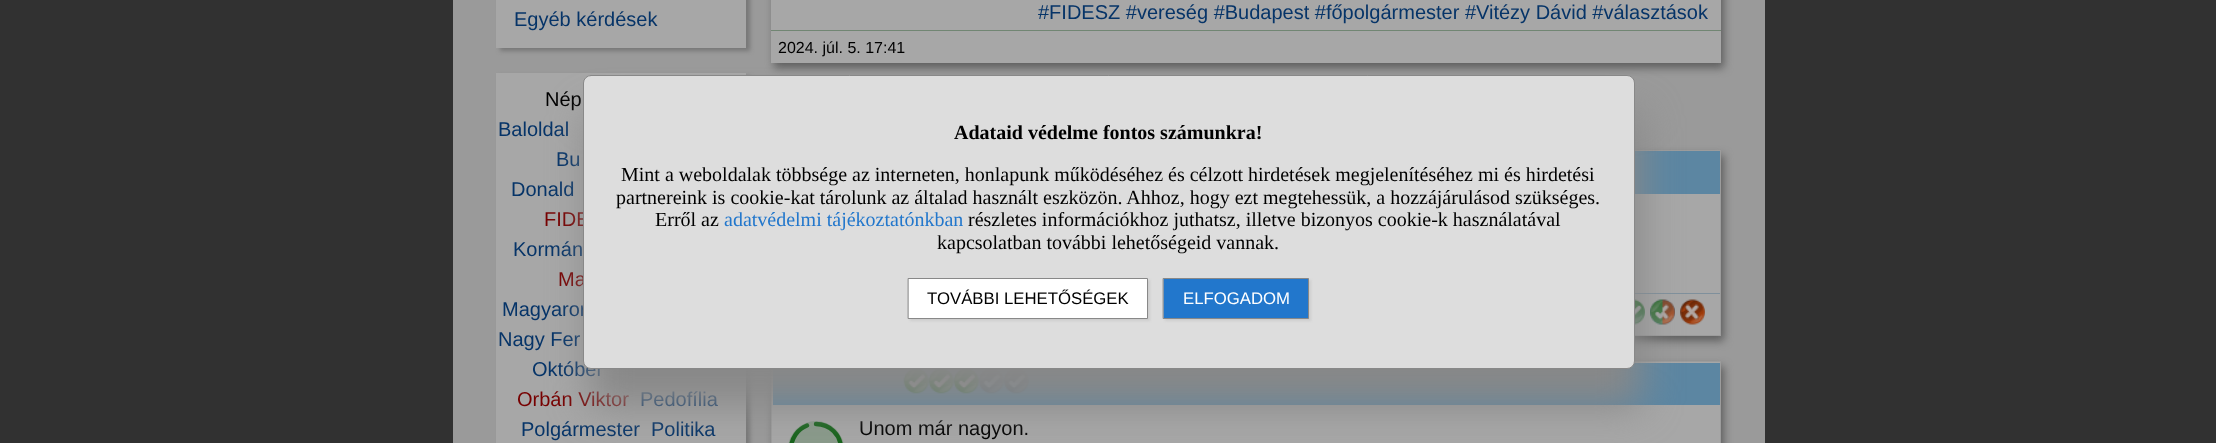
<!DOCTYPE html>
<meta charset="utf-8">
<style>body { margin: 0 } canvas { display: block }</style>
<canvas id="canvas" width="2216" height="443"></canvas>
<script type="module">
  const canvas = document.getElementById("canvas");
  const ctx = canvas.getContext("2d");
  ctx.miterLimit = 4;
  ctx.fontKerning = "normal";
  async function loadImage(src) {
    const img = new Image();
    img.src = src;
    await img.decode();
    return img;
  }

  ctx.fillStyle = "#313131";
  ctx.fillRect(0, 0, 2216, 443);
  ctx.fillStyle = "#9a9a9a";
  ctx.fillRect(453, 0, 1312, 443);
  ctx.fillStyle = "#777777";
  ctx.filter = "blur(2px)";
  ctx.beginPath();
  ctx.rect(500, -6, 250, 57);
  ctx.fill();
  ctx.filter = "none";
  ctx.fillStyle = "#a7a7a7";
  ctx.fillRect(496, 0, 250, 48);
  ctx.font = "20px Liberation Sans";
  ctx.fillStyle = "#063468";
  ctx.fillText("Egyéb kérdések", 514, 26);
  ctx.fillStyle = "#777777";
  ctx.filter = "blur(2px)";
  ctx.beginPath();
  ctx.rect(500, 76, 250, 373);
  ctx.fill();
  ctx.filter = "none";
  ctx.fillStyle = "#a7a7a7";
  ctx.fillRect(496, 73, 250, 370);
  ctx.fillStyle = "#000000";
  ctx.fillText("Nép", 545, 106);
  ctx.fillStyle = "#063468";
  ctx.fillText("Baloldal", 498, 136);
  ctx.fillText("Bu", 556, 166);
  ctx.fillText("Donald", 511, 196);
  ctx.fillStyle = "#770000";
  ctx.fillText("FIDE", 544, 226);
  ctx.fillStyle = "#063468";
  ctx.fillText("Kormán", 513, 256);
  ctx.fillStyle = "#770000";
  ctx.fillText("Ma", 558, 286);
  ctx.fillStyle = "#063468";
  ctx.fillText("Magyaror", 502, 316);
  ctx.fillText("Nagy Fer", 498, 346);
  ctx.fillText("Október", 532, 376);
  ctx.fillStyle = "#770000";
  ctx.fillText("Orbán Viktor", 517, 406);
  ctx.fillStyle = "#063468";
  ctx.fillText("Pedofília", 640, 406);
  ctx.fillText("Polgármester", 521, 436);
  ctx.fillText("Politika", 651, 436);
  ctx.fillStyle = "#5f5f5f";
  ctx.filter = "blur(4px)";
  ctx.beginPath();
  ctx.rect(774, -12, 950, 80);
  ctx.fill();
  ctx.filter = "none";
  ctx.fillStyle = "#a7a7a7";
  ctx.fillRect(771, 0, 950, 63);
  ctx.fillStyle = "#063468";
  ctx.fillText("#FIDESZ #vereség #Budapest #főpolgármester #Vitézy Dávid #választások", 1038, 19);
  ctx.fillStyle = "#718673";
  ctx.fillRect(771, 30, 950, 1);
  ctx.font = "16px Liberation Sans";
  ctx.fillStyle = "#000000";
  ctx.fillText("2024. júl. 5. 17:41", 778, 53);
  ctx.fillStyle = "#5f5f5f";
  ctx.filter = "blur(4px)";
  ctx.beginPath();
  ctx.rect(774, 155, 950, 186);
  ctx.fill();
  ctx.filter = "none";
  ctx.fillStyle = "#a7a7a7";
  ctx.fillRect(1635, 194, 85, 141);
  ctx.strokeStyle = "#9c9c9c";
  ctx.strokeRect(771.5, 150.5, 949, 185);
  ctx.fillStyle = "#5c86a2";
  ctx.fillRect(1635, 151, 85, 43);
  ctx.fillStyle = "#7f909c";
  ctx.fillRect(1635, 293, 85, 1);
  ctx.drawImage(await loadImage("img1.png"), 1635, 299, 10, 26);
  ctx.drawImage(await loadImage("img2.png"), 1650, 299, 25, 26);
  ctx.drawImage(await loadImage("img3.png"), 1680, 299, 25, 26);
  ctx.fillStyle = "#5f5f5f";
  ctx.filter = "blur(4px)";
  ctx.beginPath();
  ctx.rect(774, 366, 950, 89);
  ctx.fill();
  ctx.filter = "none";
  ctx.fillStyle = "#a7a7a7";
  ctx.beginPath();
  ctx.rect(771.5, 361.5, 949, 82);
  ctx.fill();
  ctx.stroke();
  ctx.fillStyle = "#5c86a2";
  ctx.fillRect(773, 363, 947, 42);
  ctx.drawImage(await loadImage("img4.png"), 903, 369, 26, 25);
  ctx.drawImage(await loadImage("img5.png"), 928, 369, 26, 25);
  ctx.drawImage(await loadImage("img5.png"), 953, 369, 26, 25);
  ctx.drawImage(await loadImage("img6.png"), 978, 369, 26, 25);
  ctx.drawImage(await loadImage("img7.png"), 1003, 369, 26, 25);
  ctx.fillStyle = "#899a8a";
  ctx.beginPath();
  ctx.arc(816, 449, 28, 0, Math.PI * 2);
  ctx.fill();
  ctx.beginPath();
  ctx.moveTo(816, 424);
  ctx.bezierCurveTo(830, 424, 841, 435, 841, 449);
  ctx.bezierCurveTo(841, 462.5, 830, 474, 816, 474);
  ctx.bezierCurveTo(802.5, 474, 791, 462.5, 791, 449);
  ctx.bezierCurveTo(791, 438, 798, 429, 807, 425.5);
  ctx.strokeStyle = "#16631a";
  ctx.lineWidth = 4.4;
  ctx.lineCap = "round";
  ctx.stroke();
  ctx.font = "20px Liberation Sans";
  ctx.fillStyle = "#000000";
  ctx.fillText("Unom már nagyon.", 859, 435);
  ctx.fillStyle = "#888888";
  ctx.filter = "blur(19px)";
  ctx.beginPath();
  ctx.roundRect(589, 113, 1052, 293, 8);
  ctx.fill();
  ctx.filter = "none";
  ctx.fillStyle = "#dddddd";
  ctx.beginPath();
  ctx.roundRect(583.5, 75.5, 1051, 293, 7.5);
  ctx.fill();
  ctx.strokeStyle = "#888888";
  ctx.lineWidth = 1;
  ctx.stroke();
  ctx.font = "bold 20px Liberation Serif";
  ctx.fillStyle = "#000000";
  ctx.fillText("Adataid védelme fontos számunkra!", 954, 139);
  ctx.font = "20px Liberation Serif";
  ctx.fillText("Mint a weboldalak többsége az interneten, honlapunk működéséhez és célzott hirdetések megjelenítéséhez mi és hirdetési", 621, 181);
  ctx.fillText("partnereink is cookie-kat tárolunk az általad használt eszközön. Ahhoz, hogy ezt megtehessük, a hozzájárulásod szükséges.", 616, 204);
  ctx.fillText("Erről az", 655, 226);
  ctx.fillStyle = "#2277cc";
  ctx.fillText("adatvédelmi tájékoztatónkban", 724, 226);
  ctx.fillStyle = "#000000";
  ctx.fillText("részletes információkhoz juthatsz, illetve bizonyos cookie-k használatával", 968, 226);
  ctx.fillText("kapcsolatban további lehetőségeid vannak.", 937, 249);
  ctx.fillStyle = "#cdcdcd";
  ctx.filter = "blur(1px)";
  ctx.beginPath();
  ctx.rect(910, 280, 240, 41);
  ctx.fill();
  ctx.filter = "none";
  ctx.fillStyle = "#ffffff";
  ctx.beginPath();
  ctx.rect(908.5, 278.5, 239, 40);
  ctx.fill();
  ctx.stroke();
  ctx.font = "16.75px Liberation Sans";
  ctx.fillStyle = "#000000";
  ctx.fillText("TOVÁBBI LEHETŐSÉGEK", 927, 304);
  ctx.fillStyle = "#cdcdcd";
  ctx.filter = "blur(1px)";
  ctx.beginPath();
  ctx.rect(1165, 280, 146, 41);
  ctx.fill();
  ctx.filter = "none";
  ctx.fillStyle = "#2277cc";
  ctx.beginPath();
  ctx.rect(1163.5, 278.5, 145, 40);
  ctx.fill();
  ctx.stroke();
  ctx.fillStyle = "#ffffff";
  ctx.fillText("ELFOGADOM", 1183, 304);
</script>
